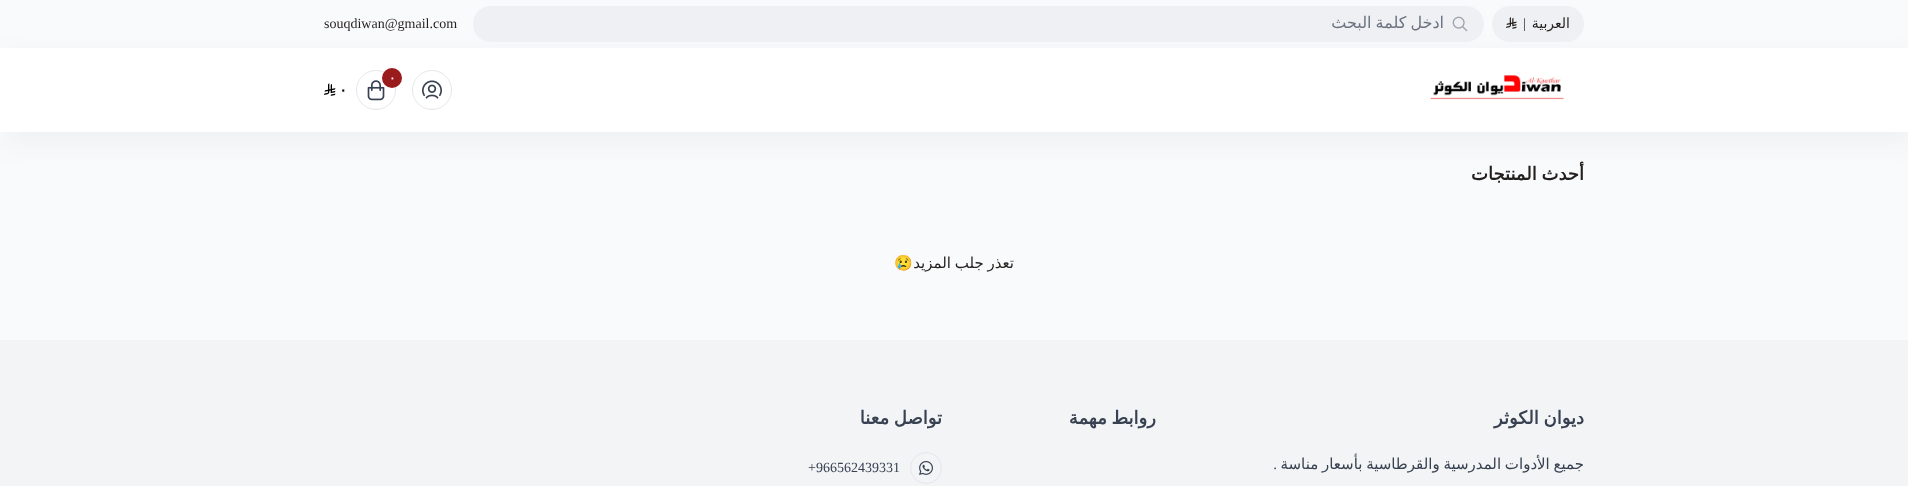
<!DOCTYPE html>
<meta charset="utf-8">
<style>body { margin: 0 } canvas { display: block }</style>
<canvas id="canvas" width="1908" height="486"></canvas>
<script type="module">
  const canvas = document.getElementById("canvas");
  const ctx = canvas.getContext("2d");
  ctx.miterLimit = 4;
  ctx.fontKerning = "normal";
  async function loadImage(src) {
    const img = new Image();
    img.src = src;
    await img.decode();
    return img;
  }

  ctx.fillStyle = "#f9fafb";
  ctx.fillRect(0, 0, 1908, 486);
  ctx.fillStyle = "rgba(43, 45, 52, 0.05)";
  ctx.filter = "blur(15px)";
  ctx.beginPath();
  ctx.rect(5, 58, 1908, 84);
  ctx.fill();
  ctx.filter = "none";
  ctx.fillStyle = "#eff0f3";
  ctx.beginPath();
  ctx.roundRect(1492, 6, 92, 36, 18);
  ctx.fill();
  ctx.direction = "rtl";
  ctx.font = "14px DejaVu Sans";
  ctx.fillStyle = "#231f1e";
  ctx.fillText("العربية", 1570, 28);
  ctx.direction = "ltr";
  ctx.font = "14px Liberation Serif";
  ctx.fillText("|", 1523, 28);
  ctx.drawImage(await loadImage("img1.png"), 1506, 17, 11, 12);
  ctx.fillStyle = "#eff0f3";
  ctx.beginPath();
  ctx.roundRect(473, 6, 1011, 36, 18);
  ctx.fill();
  ctx.drawImage(await loadImage("img2.png"), 1452, 16, 16, 16);
  ctx.save();
  ctx.beginPath();
  ctx.rect(500, 13, 944, 19);
  ctx.clip();
  ctx.wordSpacing = "-1px";
  ctx.direction = "rtl";
  ctx.font = "16px DejaVu Sans";
  ctx.fillStyle = "#6b7280";
  ctx.fillText("ادخل كلمة البحث", 1444, 28);
  ctx.restore();
  ctx.fillStyle = "#231f1e";
  ctx.fillText("souqdiwan@gmail.com", 324, 28);
  ctx.fillStyle = "#ffffff";
  ctx.fillRect(0, 48, 1908, 84);
  ctx.drawImage(await loadImage("img3.png"), 1430, 75, 134, 25);
  ctx.beginPath();
  ctx.arc(432, 90, 19.5, 0, Math.PI * 2);
  ctx.strokeStyle = "#e5e7eb";
  ctx.stroke();
  ctx.drawImage(await loadImage("img4.png"), 422, 80, 20, 19);
  ctx.beginPath();
  ctx.arc(376, 90, 19.5, 0, Math.PI * 2);
  ctx.stroke();
  ctx.drawImage(await loadImage("img5.png"), 367, 80, 18, 21);
  ctx.fillStyle = "#991b1b";
  ctx.beginPath();
  ctx.arc(392, 78, 10, 0, Math.PI * 2);
  ctx.fill();
  ctx.font = "bold 12px DejaVu Sans";
  ctx.fillStyle = "#ffffff";
  ctx.fillText("٠", 389, 82);
  ctx.font = "bold 15px DejaVu Sans";
  ctx.fillStyle = "#000000";
  ctx.fillText("٠", 339, 95);
  ctx.drawImage(await loadImage("img6.png"), 324, 83, 12, 13);
  ctx.wordSpacing = "-1px";
  ctx.direction = "rtl";
  ctx.font = "bold 18px DejaVu Sans";
  ctx.fillStyle = "#231f1e";
  ctx.fillText("أحدث المنتجات", 1584, 180);
  ctx.font = "15px DejaVu Sans";
  ctx.fillText("تعذر جلب المزيد", 1014, 268);
  ctx.wordSpacing = "0px";
  ctx.font = "15px Noto Color Emoji";
  ctx.fillText("😢", 913, 268);
  ctx.fillStyle = "#f3f4f6";
  ctx.fillRect(0, 340, 1908, 146);
  ctx.wordSpacing = "-1px";
  ctx.font = "bold 18px DejaVu Sans";
  ctx.fillStyle = "#374151";
  ctx.fillText("ديوان الكوثر", 1584, 424);
  ctx.font = "15px DejaVu Sans";
  ctx.fillText("جميع الأدوات المدرسية والقرطاسية بأسعار مناسة", 1584, 469);
  ctx.wordSpacing = "0px";
  ctx.font = "15px Liberation Serif";
  ctx.fillText(".", 1277, 469);
  ctx.wordSpacing = "-1px";
  ctx.font = "bold 18px DejaVu Sans";
  ctx.fillText("روابط مهمة", 1156, 424);
  ctx.fillText("تواصل معنا", 942, 424);
  ctx.beginPath();
  ctx.arc(926, 468, 15.5, 0, Math.PI * 2);
  ctx.stroke();
  ctx.drawImage(await loadImage("img7.png"), 919, 461, 14, 14);
  ctx.wordSpacing = "0px";
  ctx.direction = "ltr";
  ctx.font = "14px Liberation Serif";
  ctx.fillText("+966562439331", 808, 472);
</script>
